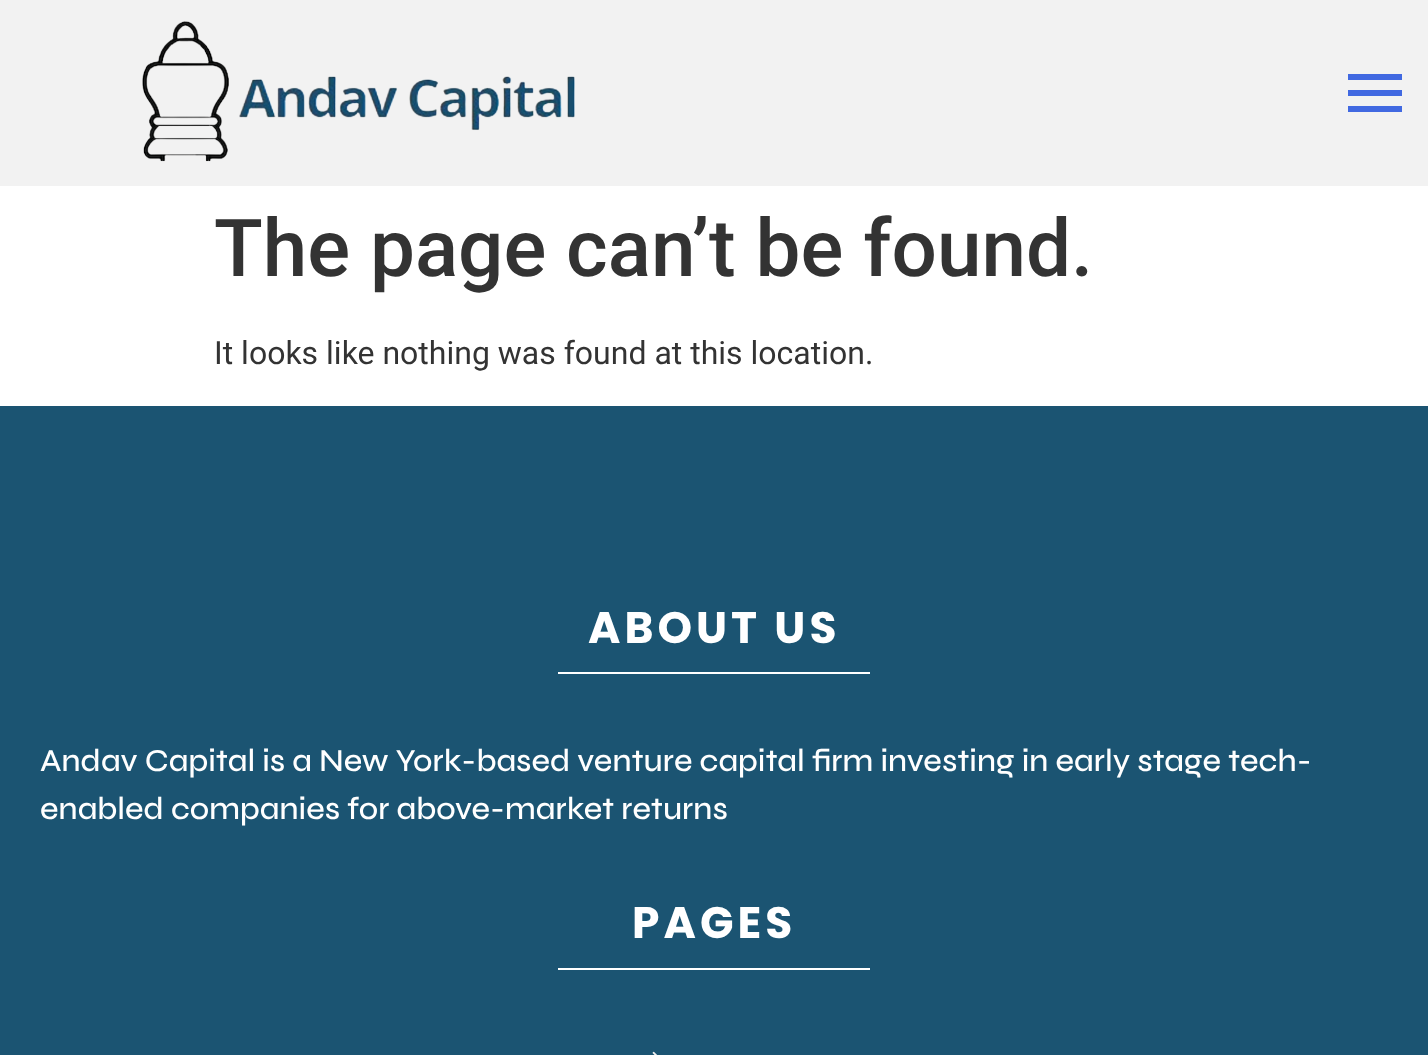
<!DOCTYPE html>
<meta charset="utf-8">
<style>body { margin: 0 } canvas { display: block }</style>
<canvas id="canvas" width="1428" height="1055"></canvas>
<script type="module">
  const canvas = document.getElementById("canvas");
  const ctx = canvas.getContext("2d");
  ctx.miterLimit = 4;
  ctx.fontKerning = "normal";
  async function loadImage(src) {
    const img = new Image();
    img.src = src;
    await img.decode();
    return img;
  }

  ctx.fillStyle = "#ffffff";
  ctx.fillRect(0, 0, 1428, 1055);
  ctx.fillStyle = "#f2f2f2";
  ctx.fillRect(0, 0, 1428, 186);
  ctx.drawImage(await loadImage("img1.png"), 142, 21, 433, 141);
  ctx.fillStyle = "#4169e1";
  ctx.fillRect(1348, 74, 54, 6);
  ctx.fillRect(1348, 90, 54, 6);
  ctx.fillRect(1348, 106, 54, 6);
  ctx.font = "500 80px Roboto";
  ctx.fillStyle = "#333333";
  ctx.fillText("The page can’t be found.", 214, 276);
  ctx.font = "32px Roboto";
  ctx.fillText("It looks like nothing was found at this location.", 214, 364);
  ctx.fillStyle = "#1b5472";
  ctx.fillRect(0, 406, 1428, 649);
  ctx.letterSpacing = "4px";
  ctx.font = "bold 44px Poppins";
  ctx.fillStyle = "#ffffff";
  ctx.fillText("ABOUT US", 588, 643);
  ctx.fillRect(558, 672, 312, 2);
  ctx.letterSpacing = "0px";
  ctx.font = "500 32px Syne";
  ctx.fillText("Andav Capital is a New York-based venture capital firm investing in early stage tech-", 40, 771);
  ctx.fillText("enabled companies for above-market returns", 40, 819);
  ctx.letterSpacing = "4px";
  ctx.font = "bold 44px Poppins";
  ctx.fillText("PAGES", 632, 938);
  ctx.fillRect(558, 968, 312, 2);
  ctx.drawImage(await loadImage("img2.png"), 652, 1051, 5, 4);
</script>
